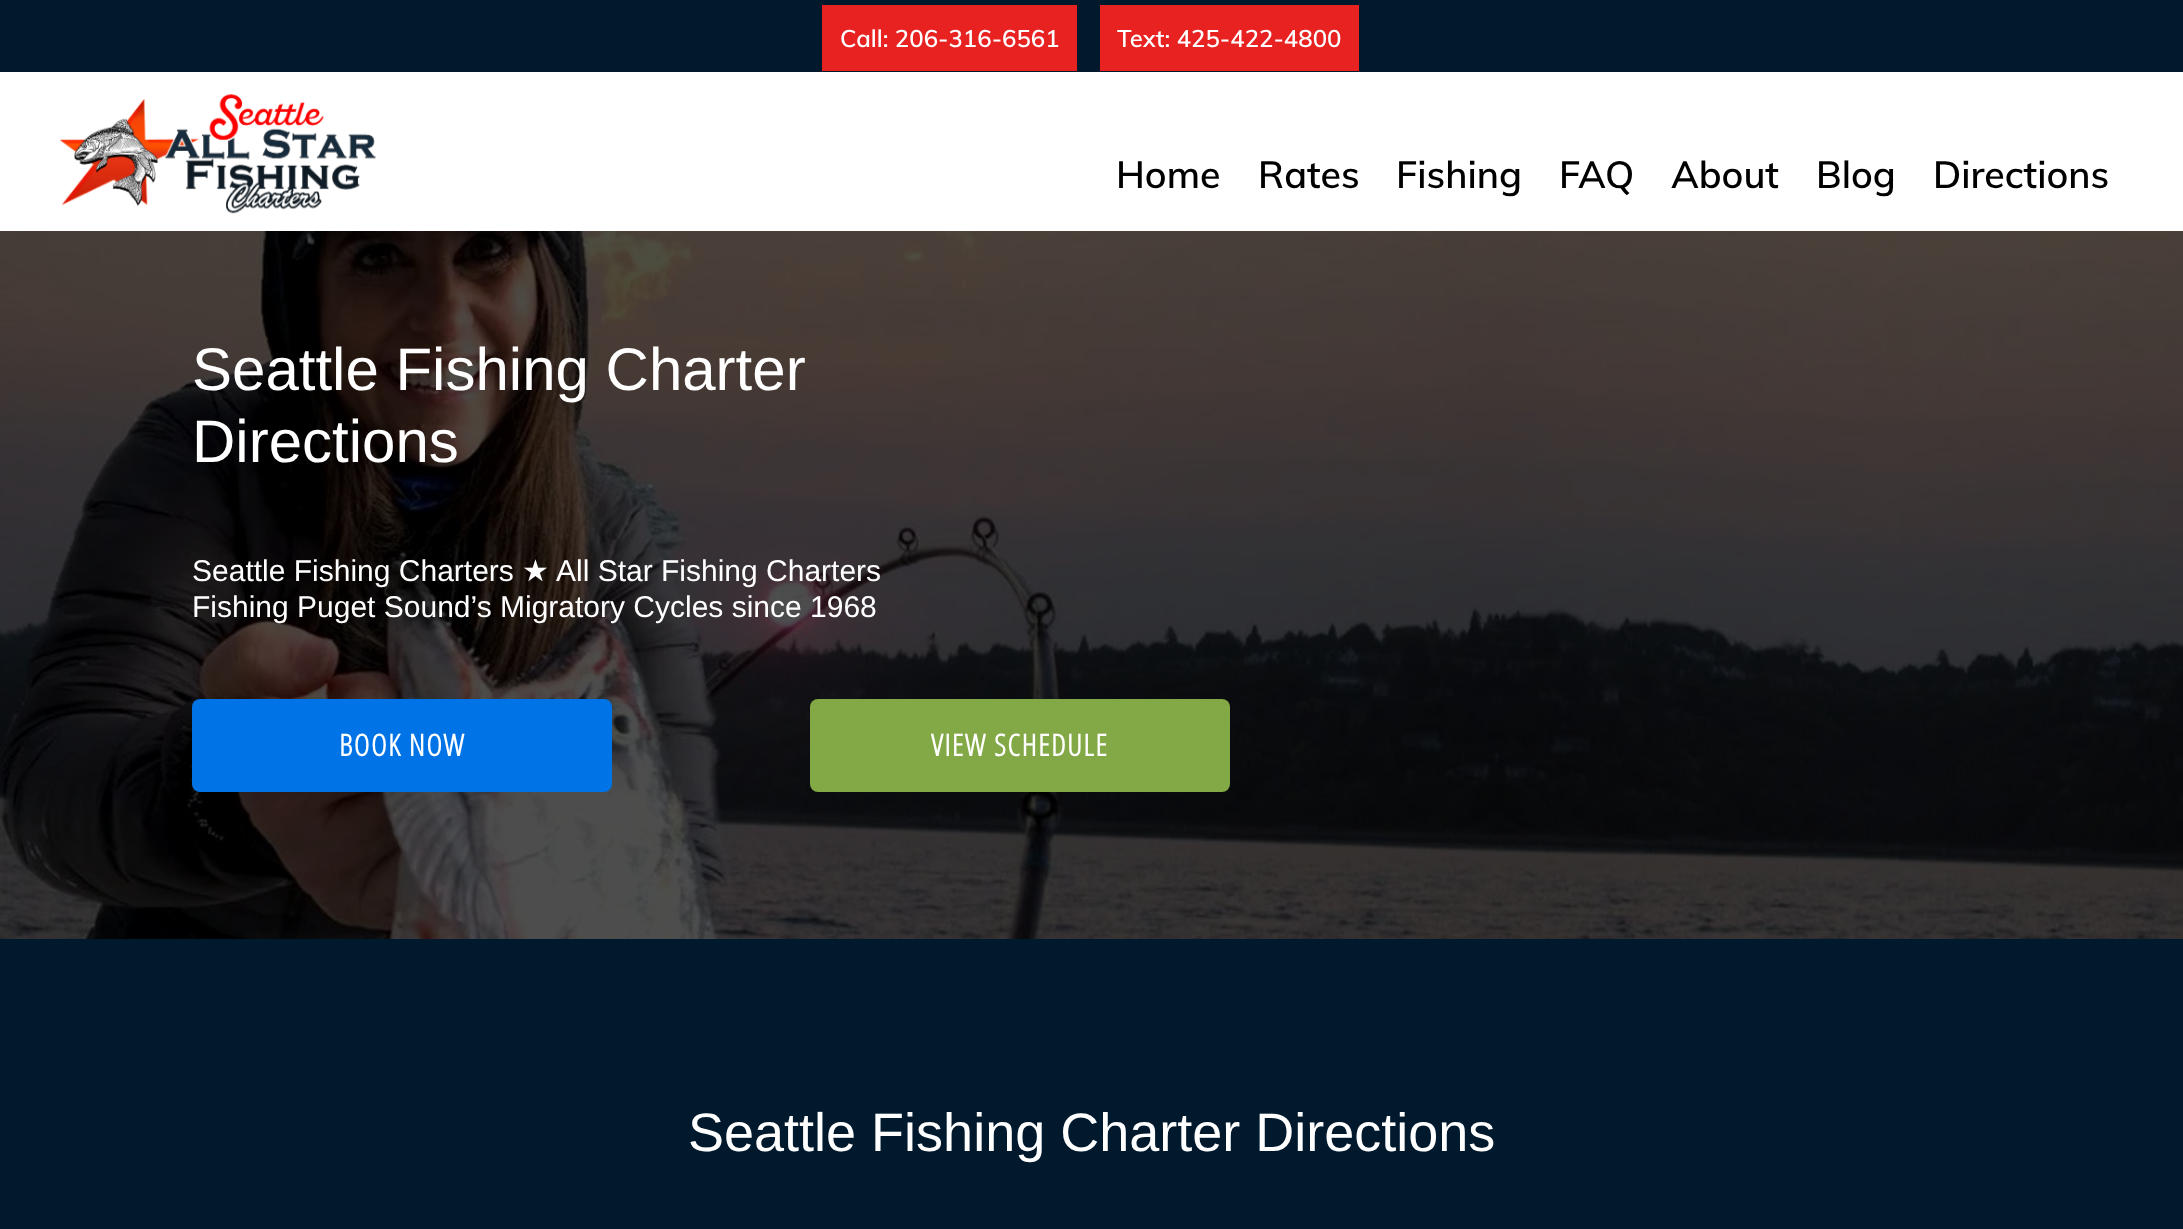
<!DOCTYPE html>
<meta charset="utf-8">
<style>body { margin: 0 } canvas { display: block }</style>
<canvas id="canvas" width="2183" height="1229"></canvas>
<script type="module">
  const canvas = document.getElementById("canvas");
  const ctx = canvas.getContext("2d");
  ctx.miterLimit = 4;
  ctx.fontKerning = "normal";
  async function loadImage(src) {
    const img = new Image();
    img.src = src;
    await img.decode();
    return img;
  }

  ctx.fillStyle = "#ffffff";
  ctx.fillRect(0, 0, 2183, 1229);
  ctx.fillStyle = "#00192d";
  ctx.fillRect(0, 0, 2183, 72);
  ctx.fillStyle = "#e82121";
  ctx.fillRect(822, 5, 255, 66);
  ctx.font = "600 24px Muli";
  ctx.fillStyle = "#ffffff";
  ctx.fillText("Call: 206-316-6561", 840, 47);
  ctx.fillStyle = "#e82121";
  ctx.fillRect(1100, 5, 259, 66);
  ctx.fillStyle = "#ffffff";
  ctx.fillText("Text: 425-422-4800", 1117, 47);
  ctx.drawImage(await loadImage("img1.png"), 60, 94, 316, 120);
  ctx.font = "600 37.5px Muli";
  ctx.fillStyle = "#000000";
  ctx.fillText("Home", 1116, 188);
  ctx.fillText("Rates", 1258, 188);
  ctx.fillText("Fishing", 1396, 188);
  ctx.fillText("FAQ", 1559, 188);
  ctx.fillText("About", 1671, 188);
  ctx.fillText("Blog", 1816, 188);
  ctx.fillText("Directions", 1933, 188);
  ctx.fillRect(0, 231, 2183, 708);
  ctx.drawImage(await loadImage("img2.png"), 0, 231, 2183, 708);
  ctx.font = "60px Liberation Sans";
  ctx.fillStyle = "#ffffff";
  ctx.fillText("Seattle Fishing Charter", 192, 390);
  ctx.fillText("Directions", 192, 462);
  ctx.font = "30px Liberation Sans";
  ctx.fillText("Seattle Fishing Charters", 192, 581);
  ctx.font = "30px DejaVu Sans";
  ctx.fillText("★", 522, 581);
  ctx.font = "30px Liberation Sans";
  ctx.fillText("All Star Fishing Charters", 556, 581);
  ctx.fillText("Fishing Puget Sound’s Migratory Cycles since 1968", 192, 617);
  ctx.fillStyle = "#0073e6";
  ctx.beginPath();
  ctx.roundRect(192, 699, 420, 93, 8);
  ctx.fill();
  ctx.letterSpacing = "1.5px";
  ctx.font = "bold 30px Open Sans Condensed";
  ctx.fillStyle = "#ffffff";
  ctx.fillText("BOOK NOW", 339, 756);
  ctx.fillStyle = "#83a846";
  ctx.beginPath();
  ctx.roundRect(810, 699, 420, 93, 8);
  ctx.fill();
  ctx.fillStyle = "#ffffff";
  ctx.fillText("VIEW SCHEDULE", 931, 756);
  ctx.fillStyle = "#00192d";
  ctx.fillRect(0, 939, 2183, 290);
  ctx.letterSpacing = "0px";
  ctx.font = "54px Liberation Sans";
  ctx.fillStyle = "#ffffff";
  ctx.fillText("Seattle Fishing Charter Directions", 688, 1151);
</script>
